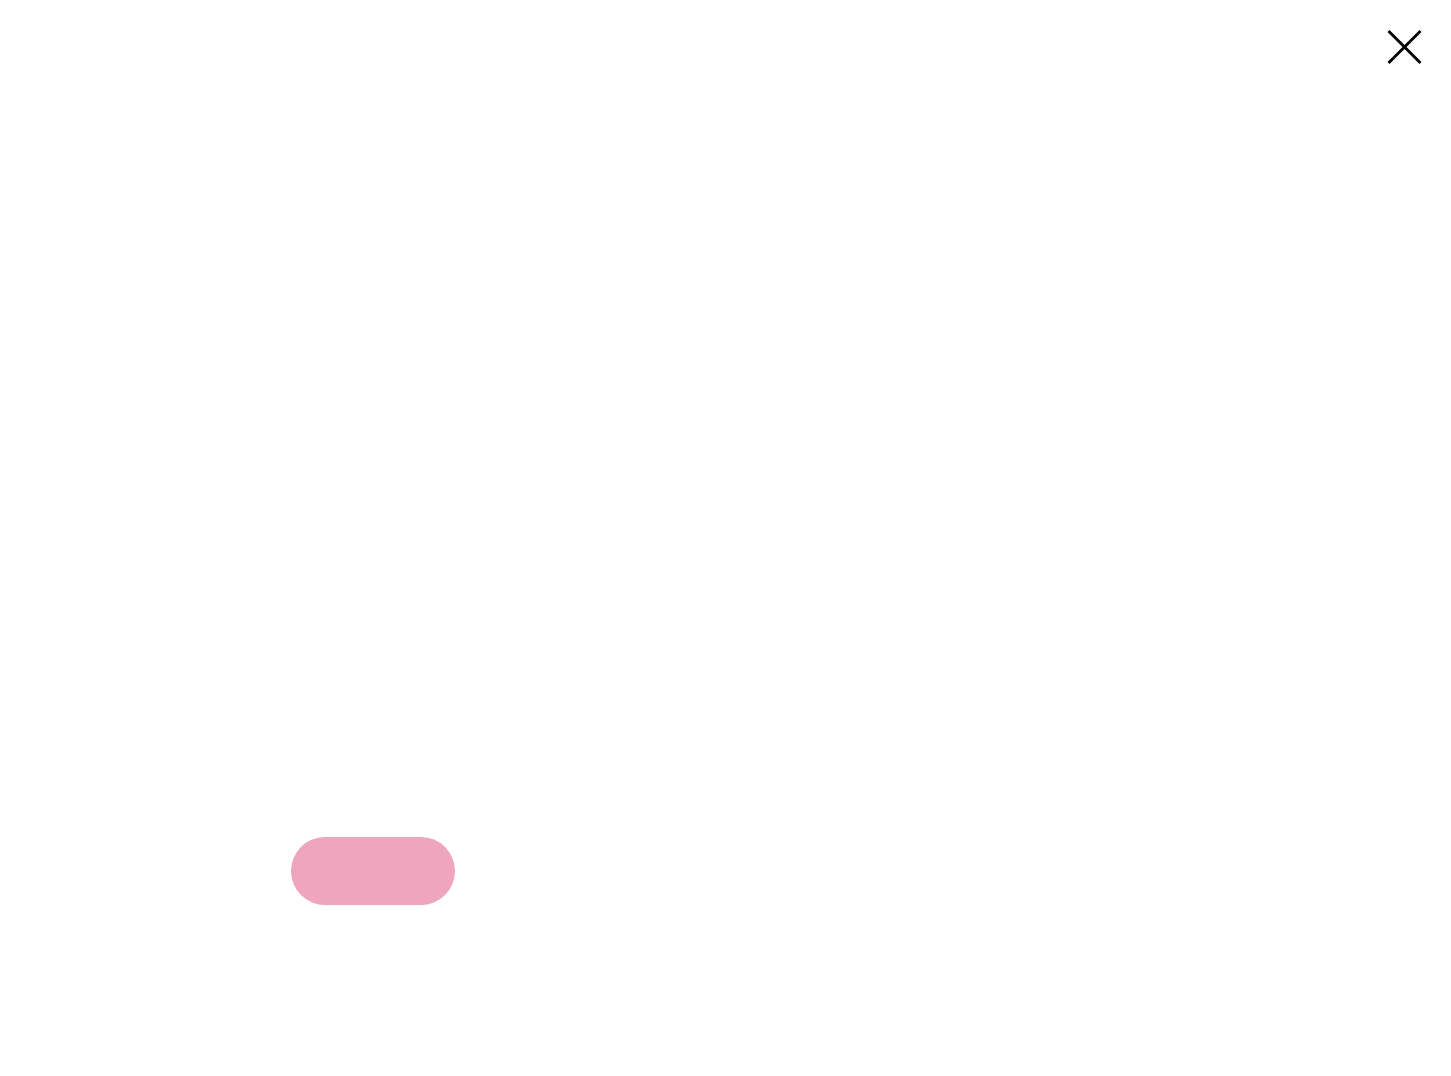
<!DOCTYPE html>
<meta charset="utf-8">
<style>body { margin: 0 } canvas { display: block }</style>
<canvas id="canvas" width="1451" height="1076"></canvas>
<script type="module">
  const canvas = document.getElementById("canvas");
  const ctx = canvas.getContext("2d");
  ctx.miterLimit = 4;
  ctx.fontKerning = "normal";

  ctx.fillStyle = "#ffffff";
  ctx.fillRect(0, 0, 1451, 1076);
  ctx.fillStyle = "#000000";
  ctx.beginPath();
  ctx.moveTo(1387.5, 32);
  ctx.lineTo(1389.5, 30);
  ctx.lineTo(1421.5, 62);
  ctx.lineTo(1419.5, 64);
  ctx.closePath();
  ctx.fill("evenodd");
  ctx.beginPath();
  ctx.moveTo(1419.5, 30);
  ctx.lineTo(1421.5, 32);
  ctx.lineTo(1389.5, 64);
  ctx.lineTo(1387.5, 62);
  ctx.closePath();
  ctx.fill("evenodd");
  ctx.fillStyle = "#eea5bd";
  ctx.beginPath();
  ctx.roundRect(291, 837, 164, 68, 34);
  ctx.fill();
</script>
